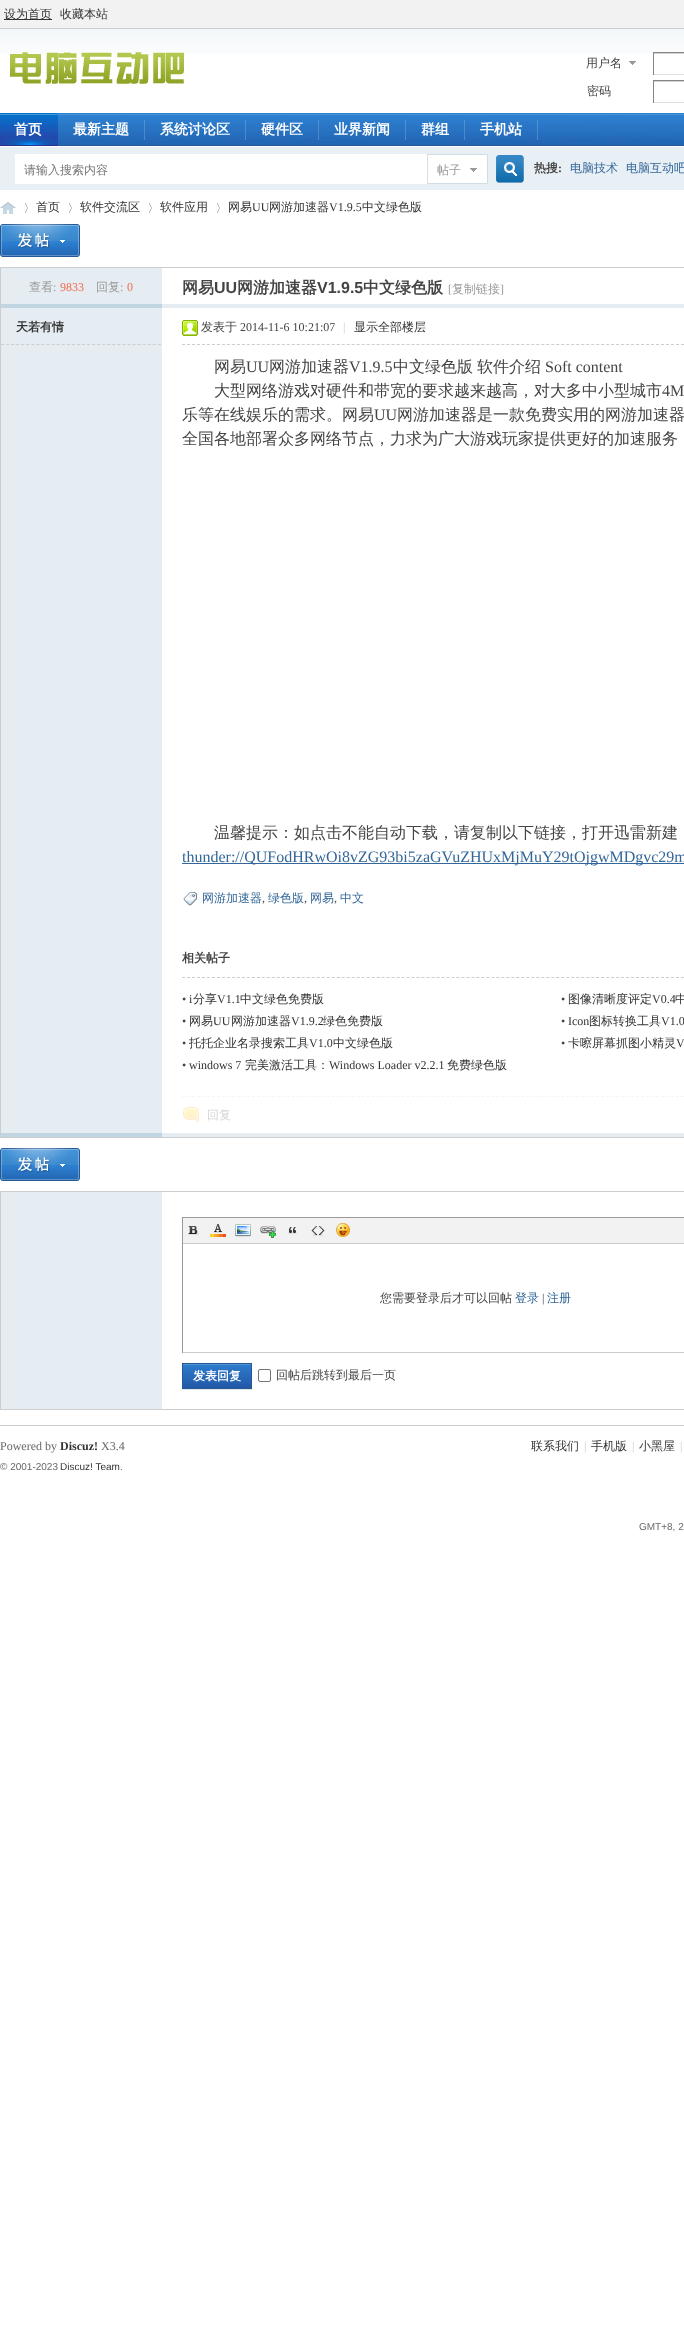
<!DOCTYPE html>
<meta charset="utf-8">
<style>body { margin: 0 } canvas { display: block }</style>
<canvas id="canvas" width="684" height="2337"></canvas>
<script type="module">
  const canvas = document.getElementById("canvas");
  const ctx = canvas.getContext("2d");
  ctx.miterLimit = 4;
  ctx.fontKerning = "normal";
  async function loadImage(src) {
    const img = new Image();
    img.src = src;
    await img.decode();
    return img;
  }

  ctx.fillStyle = "#ffffff";
  ctx.fillRect(0, 0, 684, 2337);
  ctx.drawImage(await loadImage("img1.png"), 0, 29, 684, 25);
  ctx.fillStyle = "#f2f2f2";
  ctx.fillRect(0, 0, 684, 28);
  ctx.fillStyle = "#cdcdcd";
  ctx.fillRect(0, 28, 684, 1);
  ctx.fillStyle = "#333333";
  ctx.fillRect(4, 19, 48, 1);
  ctx.font = "500 12px WenQuanYi Zen Hei";
  ctx.fillText("设为首页", 4, 18);
  ctx.fillText("收藏本站", 60, 18);
  ctx.drawImage(await loadImage("img2.png"), 10, 52, 175, 32);
  ctx.drawImage(await loadImage("img3.png"), 629, 61, 7, 4);
  ctx.fillStyle = "#444444";
  ctx.fillText("用户名", 586, 67);
  ctx.fillStyle = "#d4d4d4";
  ctx.fillRect(653, 53, 31, 1);
  ctx.fillStyle = "#848484";
  ctx.fillRect(653, 52, 31, 1);
  ctx.fillStyle = "#e0e0e0";
  ctx.fillRect(653, 74, 31, 1);
  ctx.fillStyle = "#848484";
  ctx.fillRect(653, 52, 1, 23);
  ctx.fillStyle = "#444444";
  ctx.fillText("密码", 587, 95);
  ctx.fillStyle = "#d4d4d4";
  ctx.fillRect(653, 81, 31, 1);
  ctx.fillStyle = "#848484";
  ctx.fillRect(653, 80, 31, 1);
  ctx.fillStyle = "#e0e0e0";
  ctx.fillRect(653, 102, 31, 1);
  ctx.fillStyle = "#848484";
  ctx.fillRect(653, 80, 1, 23);
  ctx.drawImage(await loadImage("img4.png"), 58, 113, 626, 33);
  ctx.drawImage(await loadImage("img5.png"), 0, 113, 58, 33);
  ctx.font = "bold 14px WenQuanYi Zen Hei";
  ctx.fillStyle = "#ffffff";
  ctx.fillText("首页", 14, 134);
  ctx.drawImage(await loadImage("img6.png"), 144, 120, 1, 20);
  ctx.fillText("最新主题", 73, 134);
  ctx.drawImage(await loadImage("img6.png"), 245, 120, 1, 20);
  ctx.fillText("系统讨论区", 160, 134);
  ctx.drawImage(await loadImage("img6.png"), 318, 120, 1, 20);
  ctx.fillText("硬件区", 261, 134);
  ctx.drawImage(await loadImage("img6.png"), 405, 120, 1, 20);
  ctx.fillText("业界新闻", 334, 134);
  ctx.drawImage(await loadImage("img6.png"), 464, 120, 1, 20);
  ctx.fillText("群组", 421, 134);
  ctx.drawImage(await loadImage("img6.png"), 537, 120, 1, 20);
  ctx.fillText("手机站", 480, 134);
  ctx.fillStyle = "#e8eff5";
  ctx.fillRect(0, 147, 684, 43);
  ctx.fillStyle = "#ffffff";
  ctx.fillRect(15, 154, 412, 30);
  ctx.drawImage(await loadImage("img7.png"), 496, 155, 28, 28);
  ctx.font = "bold 12px WenQuanYi Zen Hei";
  ctx.fillStyle = "#444444";
  ctx.fillText("热搜", 534, 172);
  ctx.font = "bold 12px Liberation Serif";
  ctx.fillText(":", 558, 172);
  ctx.font = "500 12px WenQuanYi Zen Hei";
  ctx.fillStyle = "#336699";
  ctx.fillText("电脑技术", 570, 172);
  ctx.fillText("电脑互动吧", 626, 172);
  ctx.fillStyle = "#757575";
  ctx.fillText("请输入搜索内容", 24, 174);
  ctx.drawImage(await loadImage("img8.png"), 427, 154, 61, 30);
  ctx.fillStyle = "#999999";
  ctx.fillText("帖子", 437, 174);
  ctx.drawImage(await loadImage("img9.png"), 0, 202, 16, 12);
  ctx.drawImage(await loadImage("img10.png"), 25, 203, 3, 10);
  ctx.fillStyle = "#333333";
  ctx.fillText("首页", 36, 211);
  ctx.drawImage(await loadImage("img10.png"), 69, 203, 3, 10);
  ctx.fillText("软件交流区", 80, 211);
  ctx.drawImage(await loadImage("img10.png"), 149, 203, 3, 10);
  ctx.fillText("软件应用", 160, 211);
  ctx.drawImage(await loadImage("img10.png"), 217, 203, 3, 10);
  ctx.fillText("网易", 228, 211);
  ctx.font = "12px Liberation Serif";
  ctx.fillText("UU", 252, 211);
  ctx.font = "500 12px WenQuanYi Zen Hei";
  ctx.fillText("网游加速器", 269, 211);
  ctx.font = "12px Liberation Serif";
  ctx.fillText("V1.9.5", 329, 211);
  ctx.font = "500 12px WenQuanYi Zen Hei";
  ctx.fillText("中文绿色版", 362, 211);
  ctx.drawImage(await loadImage("img11.png"), 0, 224, 80, 33);
  ctx.strokeStyle = "#cdcdcd";
  ctx.strokeRect(0.5, 267.5, 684, 870);
  ctx.fillStyle = "#e5edf2";
  ctx.fillRect(1, 268, 161, 36);
  ctx.fillStyle = "#999999";
  ctx.fillText("查看", 29, 291);
  ctx.font = "12px Liberation Serif";
  ctx.fillText(":", 53, 291);
  ctx.fillStyle = "#f26c4f";
  ctx.fillText("9833", 60, 291);
  ctx.font = "500 12px WenQuanYi Zen Hei";
  ctx.fillStyle = "#999999";
  ctx.fillText("回复", 96, 291);
  ctx.font = "12px Liberation Serif";
  ctx.fillText(":", 120, 291);
  ctx.fillStyle = "#f26c4f";
  ctx.fillText("0", 127, 291);
  ctx.font = "bold 16px WenQuanYi Zen Hei";
  ctx.fillStyle = "#444444";
  ctx.fillText("网易", 182, 293);
  ctx.font = "bold 16px Liberation Sans";
  ctx.fillText("UU", 214, 293);
  ctx.font = "bold 16px WenQuanYi Zen Hei";
  ctx.fillText("网游加速器", 237, 293);
  ctx.font = "bold 16px Liberation Sans";
  ctx.fillText("V1.9.5", 317, 293);
  ctx.font = "bold 16px WenQuanYi Zen Hei";
  ctx.fillText("中文绿色版", 363, 293);
  ctx.font = "12px Liberation Serif";
  ctx.fillStyle = "#999999";
  ctx.fillText("[", 448, 293);
  ctx.font = "500 12px WenQuanYi Zen Hei";
  ctx.fillText("复制链接", 452, 293);
  ctx.font = "12px Liberation Serif";
  ctx.fillText("]", 500, 293);
  ctx.fillStyle = "#c2d5e3";
  ctx.fillRect(1, 304, 161, 4);
  ctx.fillStyle = "#e5edf2";
  ctx.fillRect(162, 304, 522, 4);
  ctx.fillRect(1, 308, 161, 825);
  ctx.beginPath();
  ctx.moveTo(1, 344.5);
  ctx.lineTo(161, 344.5);
  ctx.setLineDash([3, 2.06]);
  ctx.stroke();
  ctx.font = "bold 12px WenQuanYi Zen Hei";
  ctx.fillStyle = "#333333";
  ctx.fillText("天若有情", 16, 331);
  ctx.beginPath();
  ctx.moveTo(182, 344.5);
  ctx.lineTo(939, 344.5);
  ctx.setLineDash([3, 1.99]);
  ctx.stroke();
  ctx.drawImage(await loadImage("img12.png"), 182, 320, 16, 16);
  ctx.font = "500 12px WenQuanYi Zen Hei";
  ctx.fillStyle = "#444444";
  ctx.fillText("发表于", 201, 331);
  ctx.font = "12px Liberation Serif";
  ctx.fillText("2014-11-6 10:21:07", 240, 331);
  ctx.fillStyle = "#cccccc";
  ctx.fillText("|", 343, 331);
  ctx.font = "500 12px WenQuanYi Zen Hei";
  ctx.fillStyle = "#333333";
  ctx.fillText("显示全部楼层", 354, 331);
  ctx.font = "500 16px WenQuanYi Zen Hei";
  ctx.fillStyle = "#444444";
  ctx.fillText("网易", 214, 372);
  ctx.font = "16px Liberation Serif";
  ctx.fillText("UU", 246, 372);
  ctx.font = "500 16px WenQuanYi Zen Hei";
  ctx.fillText("网游加速器", 269, 372);
  ctx.font = "16px Liberation Serif";
  ctx.fillText("V1.9.5", 349, 372);
  ctx.font = "500 16px WenQuanYi Zen Hei";
  ctx.fillText("中文绿色版", 393, 372);
  ctx.fillText("软件介绍", 477, 372);
  ctx.font = "16px Liberation Serif";
  ctx.fillText("Soft content", 545, 372);
  ctx.font = "500 16px WenQuanYi Zen Hei";
  ctx.fillText("大型网络游戏对硬件和带宽的要求越来越高，对大多中小型城市", 214, 396);
  ctx.font = "16px Liberation Serif";
  ctx.fillText("4M", 662, 396);
  ctx.font = "500 16px WenQuanYi Zen Hei";
  ctx.fillText("乐等在线娱乐的需求。网易", 182, 420);
  ctx.font = "16px Liberation Serif";
  ctx.fillText("UU", 374, 420);
  ctx.font = "500 16px WenQuanYi Zen Hei";
  ctx.fillText("网游加速器是一款免费实用的网游加速器", 397, 420);
  ctx.fillText("全国各地部署众多网络节点，力求为广大游戏玩家提供更好的加速服务", 182, 444);
  ctx.fillText("温馨提示：如点击不能自动下载，请复制以下链接，打开迅雷新建", 214, 838);
  ctx.fillStyle = "#336699";
  ctx.fillRect(182, 863, 502, 1);
  ctx.font = "16px Liberation Serif";
  ctx.fillText("thunder://QUFodHRwOi8vZG93bi5zaGVuZHUxMjMuY29tOjgwMDgvc29m", 182, 862);
  ctx.drawImage(await loadImage("img13.png"), 183, 892, 14, 14);
  ctx.font = "500 12px WenQuanYi Zen Hei";
  ctx.fillText("网游加速器", 202, 902);
  ctx.font = "12px Liberation Serif";
  ctx.fillStyle = "#444444";
  ctx.fillText(",", 262, 902);
  ctx.font = "500 12px WenQuanYi Zen Hei";
  ctx.fillStyle = "#336699";
  ctx.fillText("绿色版", 268, 902);
  ctx.font = "12px Liberation Serif";
  ctx.fillStyle = "#444444";
  ctx.fillText(",", 304, 902);
  ctx.font = "500 12px WenQuanYi Zen Hei";
  ctx.fillStyle = "#336699";
  ctx.fillText("网易", 310, 902);
  ctx.font = "12px Liberation Serif";
  ctx.fillStyle = "#444444";
  ctx.fillText(",", 334, 902);
  ctx.font = "500 12px WenQuanYi Zen Hei";
  ctx.fillStyle = "#336699";
  ctx.fillText("中文", 340, 902);
  ctx.beginPath();
  ctx.moveTo(182, 977.5);
  ctx.lineTo(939, 977.5);
  ctx.stroke();
  ctx.font = "bold 12px WenQuanYi Zen Hei";
  ctx.fillStyle = "#444444";
  ctx.fillText("相关帖子", 182, 962);
  ctx.font = "12px Liberation Serif";
  ctx.fillText("•", 182, 1003);
  ctx.fillStyle = "#333333";
  ctx.fillText("i", 189, 1003);
  ctx.font = "500 12px WenQuanYi Zen Hei";
  ctx.fillText("分享", 193, 1003);
  ctx.font = "12px Liberation Serif";
  ctx.fillText("V1.1", 217, 1003);
  ctx.font = "500 12px WenQuanYi Zen Hei";
  ctx.fillText("中文绿色免费版", 240, 1003);
  ctx.font = "12px Liberation Serif";
  ctx.fillStyle = "#444444";
  ctx.fillText("•", 561, 1003);
  ctx.font = "500 12px WenQuanYi Zen Hei";
  ctx.fillStyle = "#333333";
  ctx.fillText("图像清晰度评定", 568, 1003);
  ctx.font = "12px Liberation Serif";
  ctx.fillText("V0.4", 652, 1003);
  ctx.font = "500 12px WenQuanYi Zen Hei";
  ctx.fillText("中", 675, 1003);
  ctx.font = "12px Liberation Serif";
  ctx.fillStyle = "#444444";
  ctx.fillText("•", 182, 1025);
  ctx.font = "500 12px WenQuanYi Zen Hei";
  ctx.fillStyle = "#333333";
  ctx.fillText("网易", 189, 1025);
  ctx.font = "12px Liberation Serif";
  ctx.fillText("UU", 213, 1025);
  ctx.font = "500 12px WenQuanYi Zen Hei";
  ctx.fillText("网游加速器", 231, 1025);
  ctx.font = "12px Liberation Serif";
  ctx.fillText("V1.9.2", 291, 1025);
  ctx.font = "500 12px WenQuanYi Zen Hei";
  ctx.fillText("绿色免费版", 323, 1025);
  ctx.font = "12px Liberation Serif";
  ctx.fillStyle = "#444444";
  ctx.fillText("•", 561, 1025);
  ctx.fillStyle = "#333333";
  ctx.fillText("Icon", 568, 1025);
  ctx.font = "500 12px WenQuanYi Zen Hei";
  ctx.fillText("图标转换工具", 589, 1025);
  ctx.font = "12px Liberation Serif";
  ctx.fillText("V1.0", 661, 1025);
  ctx.fillStyle = "#444444";
  ctx.fillText("•", 182, 1047);
  ctx.font = "500 12px WenQuanYi Zen Hei";
  ctx.fillStyle = "#333333";
  ctx.fillText("托托企业名录搜索工具", 189, 1047);
  ctx.font = "12px Liberation Serif";
  ctx.fillText("V1.0", 309, 1047);
  ctx.font = "500 12px WenQuanYi Zen Hei";
  ctx.fillText("中文绿色版", 333, 1047);
  ctx.font = "12px Liberation Serif";
  ctx.fillStyle = "#444444";
  ctx.fillText("•", 561, 1047);
  ctx.font = "500 12px WenQuanYi Zen Hei";
  ctx.fillStyle = "#333333";
  ctx.fillText("卡嚓屏幕抓图小精灵", 568, 1047);
  ctx.font = "12px Liberation Serif";
  ctx.fillText("V", 676, 1047);
  ctx.fillStyle = "#444444";
  ctx.fillText("•", 182, 1069);
  ctx.fillStyle = "#333333";
  ctx.fillText("windows 7", 189, 1069);
  ctx.font = "500 12px WenQuanYi Zen Hei";
  ctx.fillText("完美激活工具：", 245, 1069);
  ctx.font = "12px Liberation Serif";
  ctx.fillText("Windows Loader v2.2.1", 329, 1069);
  ctx.font = "500 12px WenQuanYi Zen Hei";
  ctx.fillText("免费绿色版", 447, 1069);
  ctx.beginPath();
  ctx.moveTo(182, 1096.5);
  ctx.lineTo(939, 1096.5);
  ctx.strokeStyle = "#f5f5f5";
  ctx.stroke();
  ctx.drawImage(await loadImage("img14.png"), 183, 1107, 16, 15);
  ctx.fillStyle = "#d6d6d6";
  ctx.fillText("回复", 207, 1119);
  ctx.fillStyle = "#c2d5e3";
  ctx.fillRect(161, 1133, 1, 5);
  ctx.fillRect(1, 1133, 161, 4);
  ctx.fillStyle = "#e5edf2";
  ctx.fillRect(162, 1133, 522, 4);
  ctx.drawImage(await loadImage("img11.png"), 0, 1148, 80, 33);
  ctx.strokeStyle = "#cdcdcd";
  ctx.setLineDash([]);
  ctx.strokeRect(0.5, 1191.5, 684, 218);
  ctx.fillStyle = "#c2d5e3";
  ctx.fillRect(161, 1409, 1, 1);
  ctx.fillStyle = "#e5edf2";
  ctx.fillRect(1, 1192, 161, 217);
  ctx.fillStyle = "#999999";
  ctx.fillRect(182, 1217, 502, 1);
  ctx.fillStyle = "#cccccc";
  ctx.fillRect(182, 1352, 502, 1);
  ctx.fillStyle = "#999999";
  ctx.fillRect(182, 1217, 1, 136);
  ctx.fillStyle = "#f2f2f2";
  ctx.fillRect(183, 1218, 501, 25);
  ctx.fillStyle = "#cdcdcd";
  ctx.fillRect(183, 1243, 501, 1);
  ctx.drawImage(await loadImage("img15.png"), 188, 1226, 11, 9);
  ctx.drawImage(await loadImage("img16.png"), 210, 1224, 16, 13);
  ctx.drawImage(await loadImage("img17.png"), 235, 1224, 16, 13);
  ctx.drawImage(await loadImage("img18.png"), 260, 1226, 17, 12);
  ctx.drawImage(await loadImage("img19.png"), 288, 1227, 9, 7);
  ctx.drawImage(await loadImage("img20.png"), 311, 1226, 14, 10);
  ctx.drawImage(await loadImage("img21.png"), 335, 1223, 15, 14);
  ctx.fillStyle = "#444444";
  ctx.fillText("您需要登录后才可以回帖", 380, 1302);
  ctx.fillStyle = "#336699";
  ctx.fillText("登录", 515, 1302);
  ctx.font = "12px Liberation Serif";
  ctx.fillStyle = "#444444";
  ctx.fillText("|", 542, 1302);
  ctx.font = "500 12px WenQuanYi Zen Hei";
  ctx.fillStyle = "#336699";
  ctx.fillText("注册", 547, 1302);
  ctx.fillStyle = "#e5e5e5";
  ctx.fillRect(182, 1389, 70, 1);
  ctx.drawImage(await loadImage("img22.png"), 183, 1364, 68, 24);
  ctx.strokeStyle = "#235994";
  ctx.strokeRect(182.5, 1363.5, 69, 25);
  ctx.font = "bold 12px WenQuanYi Zen Hei";
  ctx.fillStyle = "#ffffff";
  ctx.fillText("发表回复", 193, 1380);
  ctx.beginPath();
  ctx.roundRect(258.5, 1369.5, 12, 12, 1.5);
  ctx.strokeStyle = "#767676";
  ctx.stroke();
  ctx.font = "500 12px WenQuanYi Zen Hei";
  ctx.fillStyle = "#444444";
  ctx.fillText("回帖后跳转到最后一页", 276, 1379);
  ctx.fillStyle = "#cdcdcd";
  ctx.fillRect(0, 1425, 684, 1);
  ctx.font = "12px Liberation Serif";
  ctx.fillStyle = "#666666";
  ctx.fillText("Powered by", 0, 1450);
  ctx.font = "bold 12px Liberation Serif";
  ctx.fillStyle = "#333333";
  ctx.fillText("Discuz!", 60, 1450);
  ctx.font = "12px Liberation Serif";
  ctx.fillStyle = "#666666";
  ctx.fillText("X3.4", 101, 1450);
  ctx.font = "10px Liberation Sans";
  ctx.fillText("© 2001-2023", 0, 1470);
  ctx.fillStyle = "#333333";
  ctx.fillText("Discuz! Team", 60, 1470);
  ctx.fillStyle = "#666666";
  ctx.fillText(".", 120, 1470);
  ctx.font = "500 12px WenQuanYi Zen Hei";
  ctx.fillStyle = "#333333";
  ctx.fillText("联系我们", 531, 1450);
  ctx.font = "12px Liberation Serif";
  ctx.fillStyle = "#cccccc";
  ctx.fillText("|", 584, 1450);
  ctx.font = "500 12px WenQuanYi Zen Hei";
  ctx.fillStyle = "#333333";
  ctx.fillText("手机版", 591, 1450);
  ctx.font = "12px Liberation Serif";
  ctx.fillStyle = "#cccccc";
  ctx.fillText("|", 632, 1450);
  ctx.font = "500 12px WenQuanYi Zen Hei";
  ctx.fillStyle = "#333333";
  ctx.fillText("小黑屋", 639, 1450);
  ctx.font = "12px Liberation Serif";
  ctx.fillStyle = "#cccccc";
  ctx.fillText("|", 680, 1450);
  ctx.font = "10px Liberation Sans";
  ctx.fillStyle = "#666666";
  ctx.fillText("GMT+8, 2", 639, 1530);
</script>
